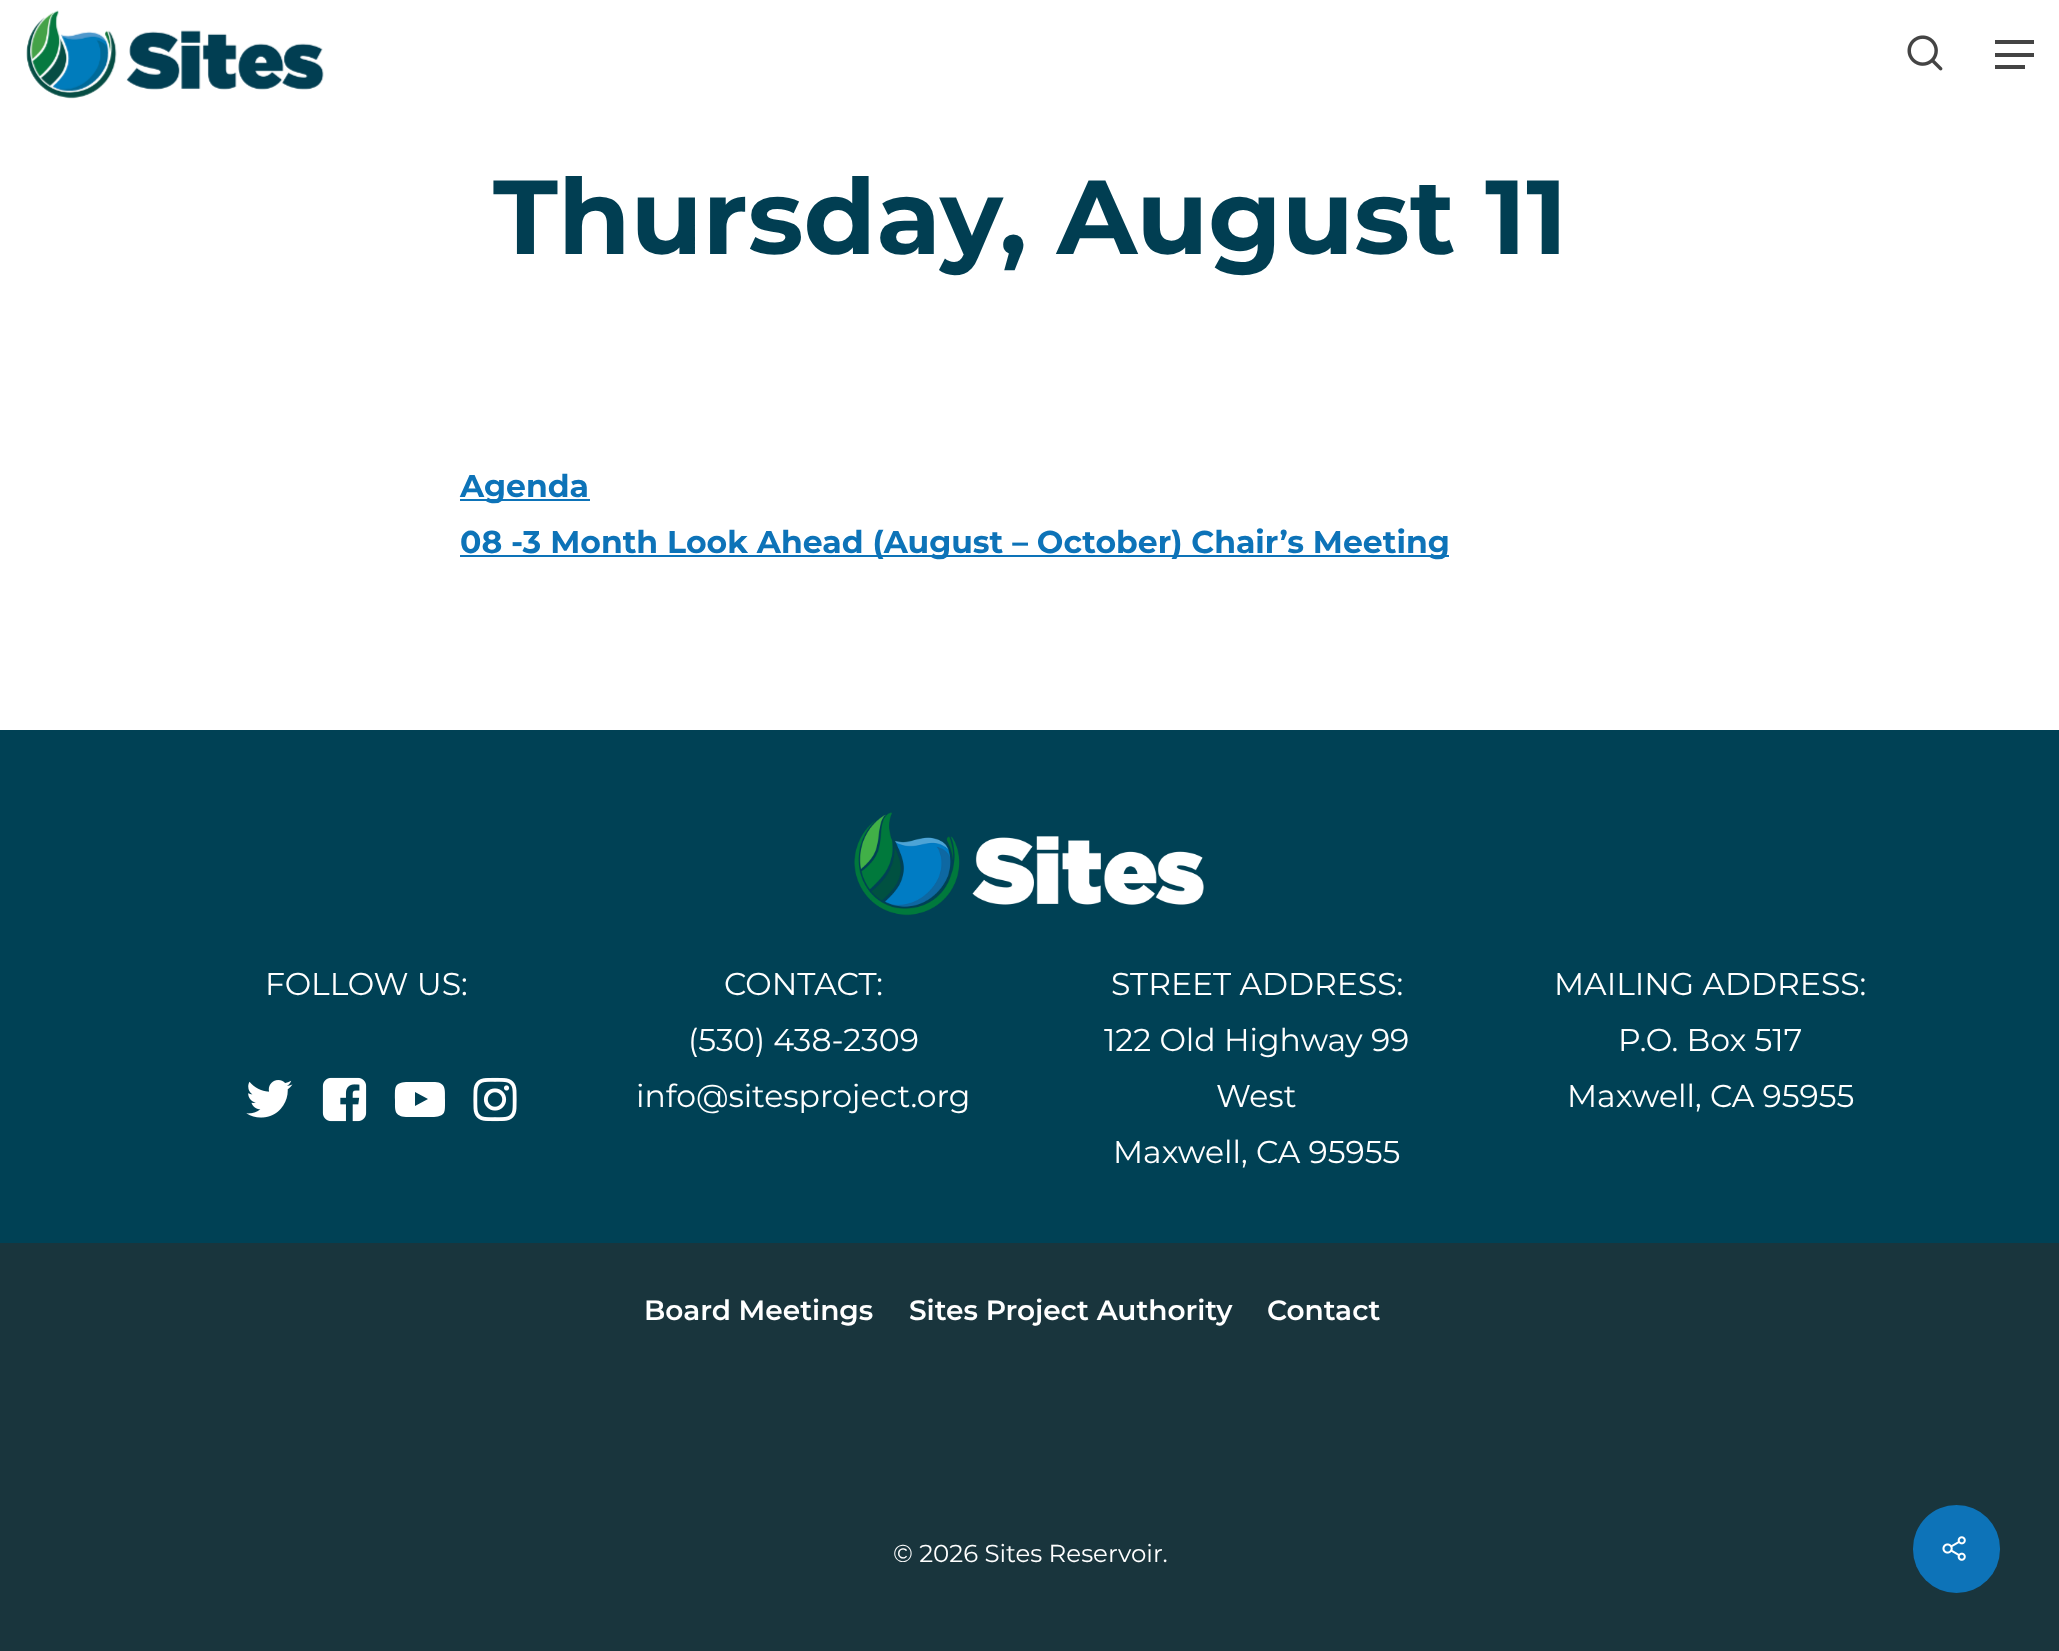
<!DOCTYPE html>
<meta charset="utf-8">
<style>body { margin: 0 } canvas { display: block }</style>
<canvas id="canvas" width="2059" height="1651"></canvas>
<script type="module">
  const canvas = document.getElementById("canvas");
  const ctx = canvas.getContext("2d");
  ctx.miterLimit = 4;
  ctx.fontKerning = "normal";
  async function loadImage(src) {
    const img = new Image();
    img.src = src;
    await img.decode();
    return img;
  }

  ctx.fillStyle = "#ffffff";
  ctx.fillRect(0, 0, 2059, 1651);
  ctx.drawImage(await loadImage("img1.png"), 26, 10, 298, 89);
  ctx.drawImage(await loadImage("img2.png"), 1907, 35, 36, 36);
  ctx.fillStyle = "#444444";
  ctx.fillRect(1995, 40, 39, 4);
  ctx.fillRect(1995, 65, 30, 4);
  ctx.fillRect(1995, 53, 39, 4);
  ctx.font = "bold 105px Montserrat";
  ctx.fillStyle = "#013e52";
  ctx.fillText("Thursday, August 11", 493, 254);
  ctx.fillStyle = "#0d73b8";
  ctx.fillRect(460, 499, 130, 2);
  ctx.font = "bold 31.5px Montserrat";
  ctx.fillText("Agenda", 460, 497);
  ctx.fillRect(460, 555, 989, 2);
  ctx.fillText("08 -3 Month Look Ahead (August – October) Chair’s Meeting", 460, 553);
  ctx.fillStyle = "#004155";
  ctx.fillRect(0, 730, 2059, 513);
  ctx.drawImage(await loadImage("img3.png"), 854, 812, 350, 104);
  ctx.font = "31.5px Montserrat";
  ctx.fillStyle = "#ffffff";
  ctx.fillText("FOLLOW US:", 265, 995);
  ctx.drawImage(await loadImage("img4.png"), 246, 1080, 47, 38);
  ctx.drawImage(await loadImage("img5.png"), 322, 1077, 45, 45);
  ctx.beginPath();
  ctx.moveTo(415, 1106);
  ctx.lineTo(428, 1099);
  ctx.lineTo(415, 1092);
  ctx.closePath();
  ctx.moveTo(420, 1082);
  ctx.lineTo(435, 1082);
  ctx.bezierCurveTo(446, 1083, 445, 1089, 445, 1100);
  ctx.bezierCurveTo(445, 1112, 446, 1116, 434, 1117);
  ctx.lineTo(406, 1117);
  ctx.bezierCurveTo(394, 1116, 395, 1110, 395, 1100);
  ctx.bezierCurveTo(395, 1087, 394, 1083, 406, 1082);
  ctx.closePath();
  ctx.fill();
  ctx.drawImage(await loadImage("img6.png"), 473, 1077, 44, 45);
  ctx.fillText("CONTACT:", 724, 995);
  ctx.fillText("(530) 438-2309", 688, 1051);
  ctx.fillText("info@sitesproject.org", 636, 1107);
  ctx.fillText("STREET ADDRESS:", 1111, 995);
  ctx.fillText("122 Old Highway 99", 1104, 1051);
  ctx.fillText("West", 1216, 1107);
  ctx.fillText("Maxwell, CA 95955", 1113, 1163);
  ctx.fillText("MAILING ADDRESS:", 1554, 995);
  ctx.fillText("P.O. Box 517", 1618, 1051);
  ctx.fillText("Maxwell, CA 95955", 1567, 1107);
  ctx.fillStyle = "#19353d";
  ctx.fillRect(0, 1243, 2059, 408);
  ctx.font = "600 28px Montserrat";
  ctx.fillStyle = "#ffffff";
  ctx.fillText("Board Meetings", 644, 1320);
  ctx.fillText("Sites Project Authority", 909, 1320);
  ctx.fillText("Contact", 1267, 1320);
  ctx.font = "24.5px Montserrat";
  ctx.fillText("© 2026 Sites Reservoir.", 893, 1562);
  ctx.fillStyle = "#0d73b8";
  ctx.beginPath();
  ctx.roundRect(1913, 1505, 87, 88, 43.5);
  ctx.fill();
  ctx.drawImage(await loadImage("img7.png"), 1942, 1536, 24, 25);
</script>
